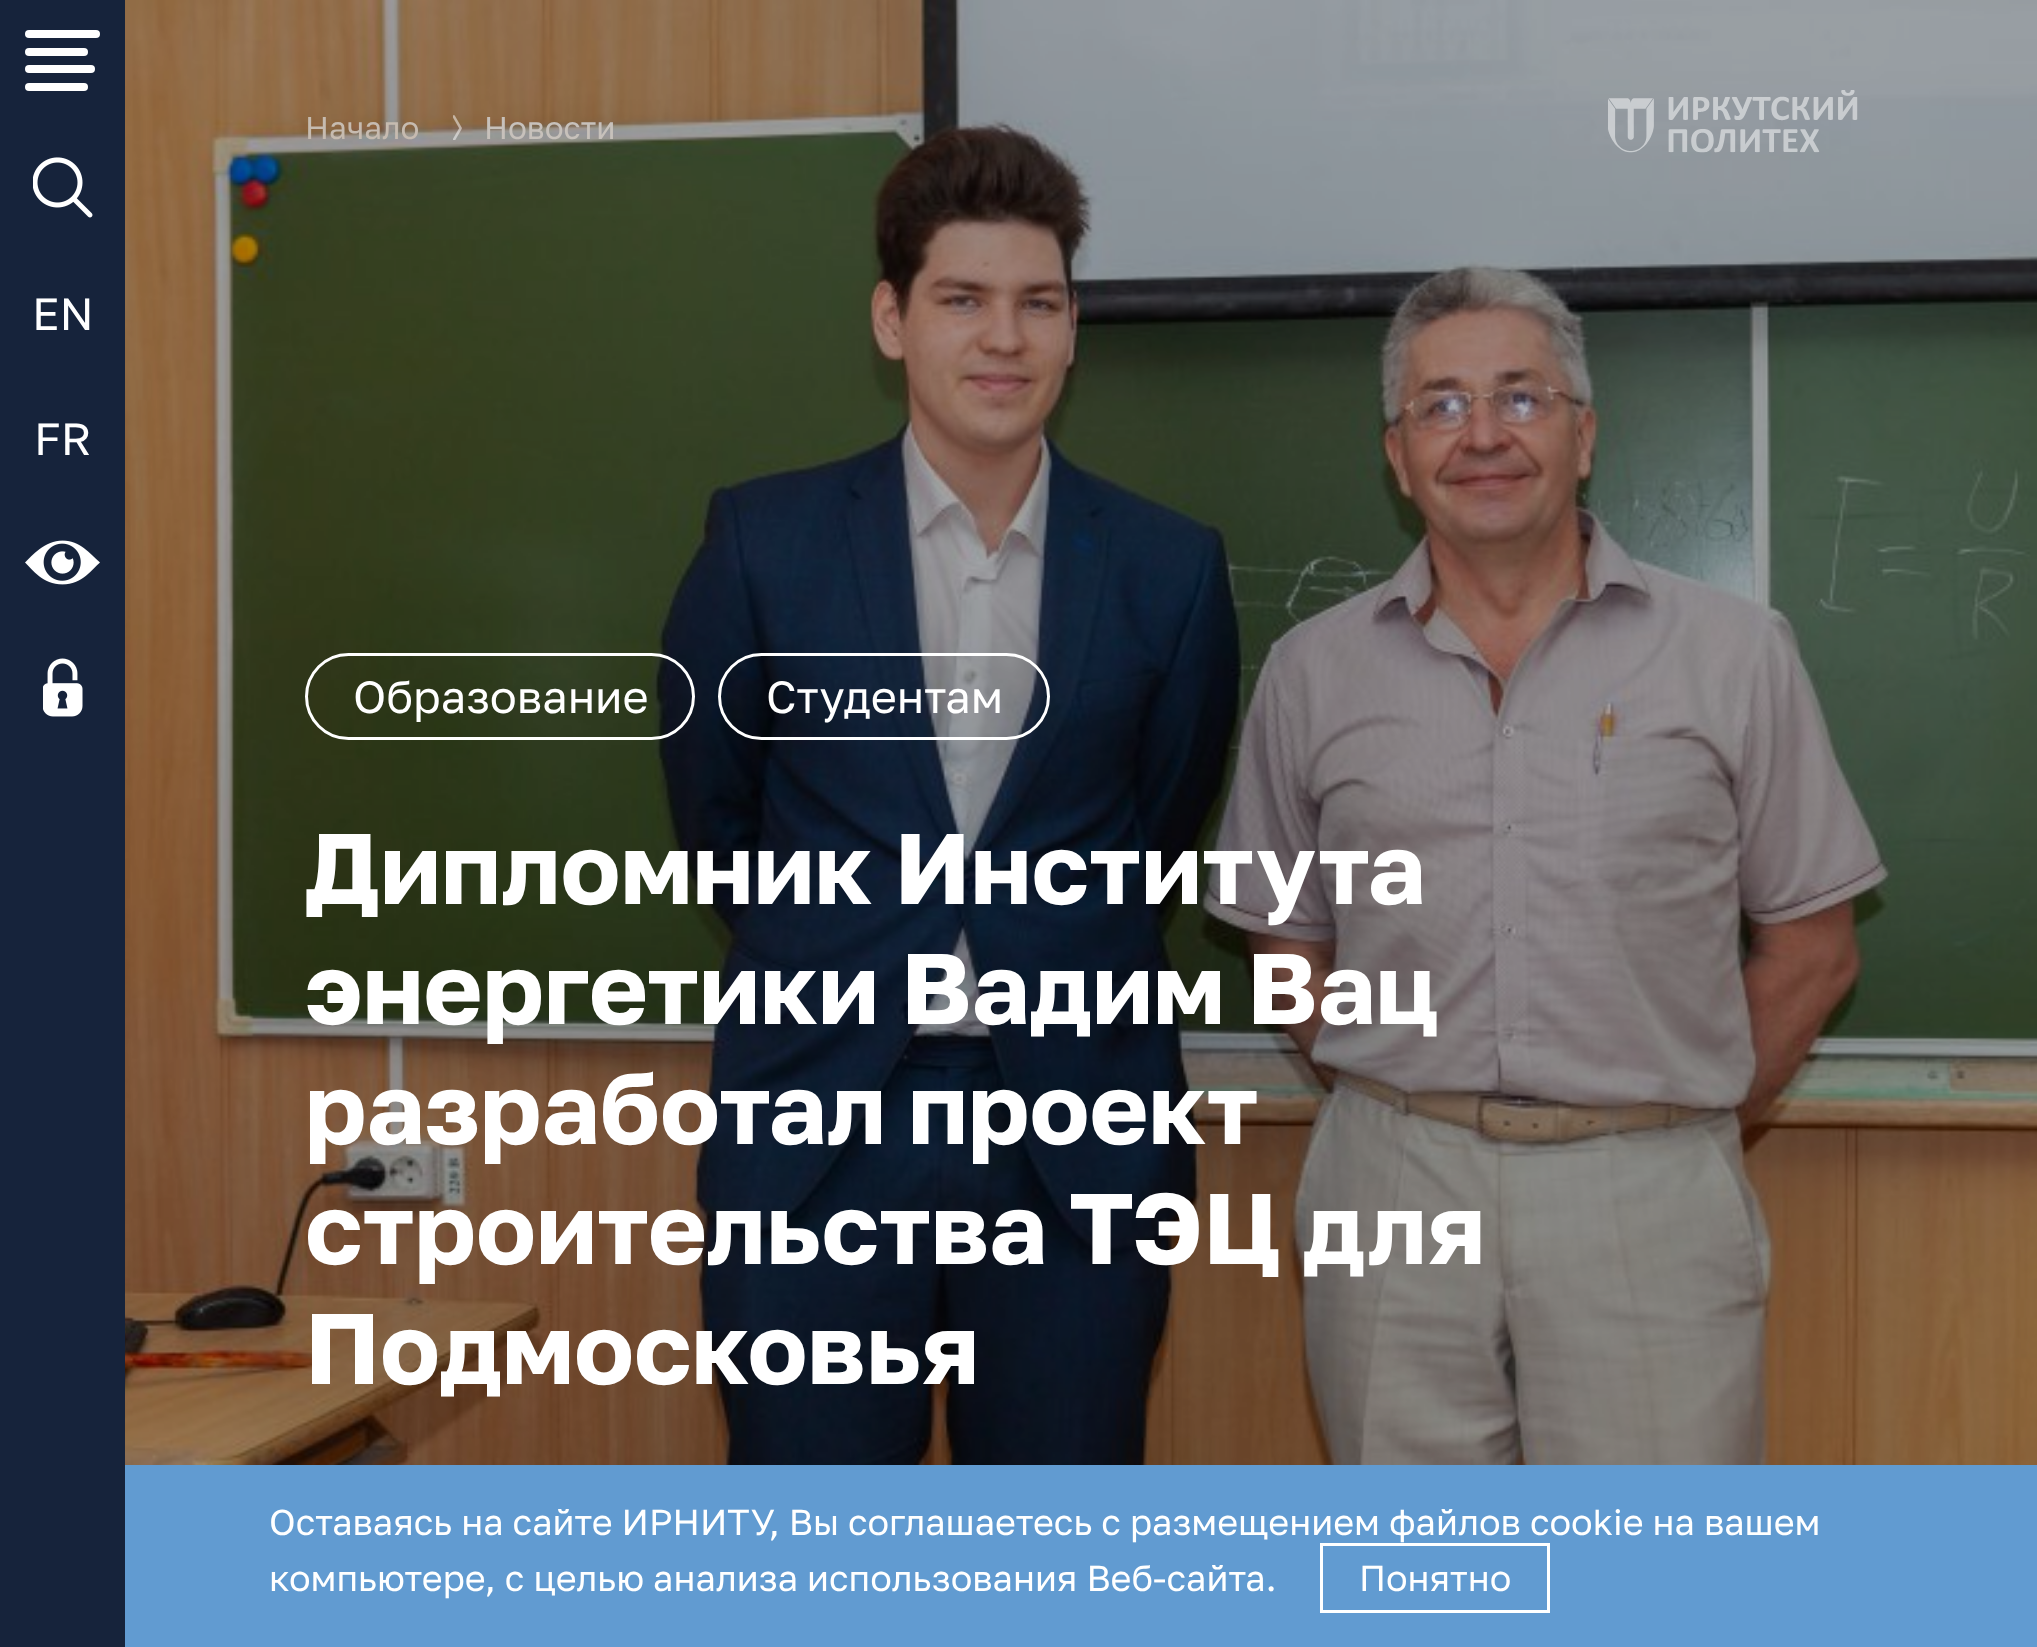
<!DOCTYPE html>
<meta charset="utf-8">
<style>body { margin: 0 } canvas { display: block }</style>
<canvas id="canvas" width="2037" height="1647"></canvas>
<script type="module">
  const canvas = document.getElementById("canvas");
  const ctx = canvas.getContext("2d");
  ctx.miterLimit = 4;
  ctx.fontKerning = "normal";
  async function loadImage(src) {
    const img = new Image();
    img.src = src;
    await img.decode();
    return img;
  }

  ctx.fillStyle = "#ffffff";
  ctx.fillRect(0, 0, 2037, 1647);
  ctx.fillStyle = "#16233b";
  ctx.fillRect(0, 0, 125, 1647);
  ctx.fillStyle = "#ffffff";
  ctx.beginPath();
  ctx.roundRect(25, 30, 75, 8, 4);
  ctx.fill();
  ctx.beginPath();
  ctx.roundRect(25, 48, 63, 8, 4);
  ctx.fill();
  ctx.beginPath();
  ctx.roundRect(25, 65, 70, 8, 4);
  ctx.fill();
  ctx.beginPath();
  ctx.roundRect(25, 83, 63, 8, 4);
  ctx.fill();
  ctx.drawImage(await loadImage("img1.png"), 33, 157, 60, 61);
  ctx.font = "45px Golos";
  ctx.fillText("EN", 32, 330);
  ctx.fillText("FR", 34, 455);
  ctx.drawImage(await loadImage("img2.png"), 25, 540, 75, 45);
  ctx.drawImage(await loadImage("img3.png"), 43, 658, 40, 59);
  ctx.drawImage(await loadImage("img4.png"), 125, 0, 1912, 1465);
  ctx.font = "31.5px Golos";
  ctx.fillStyle = "#c6bbb0";
  ctx.fillText("Начало", 305, 139);
  ctx.drawImage(await loadImage("img5.png"), 453, 115, 9, 25);
  ctx.fillStyle = "#c7c1bb";
  ctx.fillText("Новости", 484, 139);
  ctx.drawImage(await loadImage("img6.png"), 1608, 90, 250, 63);
  ctx.beginPath();
  ctx.roundRect(306.5, 654.5, 387, 84, 42);
  ctx.strokeStyle = "#ffffff";
  ctx.lineWidth = 3;
  ctx.stroke();
  ctx.font = "45px Golos";
  ctx.fillStyle = "#ffffff";
  ctx.fillText("Образование", 353, 713);
  ctx.beginPath();
  ctx.roundRect(719.5, 654.5, 329, 84, 42);
  ctx.stroke();
  ctx.fillText("Студентам", 766, 713);
  ctx.font = "bold 100px Golos";
  ctx.fillText("Дипломник Института", 305, 904);
  ctx.fillText("энергетики Вадим Вац", 305, 1024);
  ctx.fillText("разработал проект", 305, 1144);
  ctx.fillText("строительства ТЭЦ для", 305, 1264);
  ctx.fillText("Подмосковья", 305, 1384);
  ctx.fillStyle = "#619bd1";
  ctx.fillRect(125, 1465, 1912, 182);
  ctx.font = "36px Golos";
  ctx.fillStyle = "#ffffff";
  ctx.fillText("Оставаясь на сайте ИРНИТУ, Вы соглашаетесь с размещением файлов cookie на вашем", 269, 1535);
  ctx.fillText("компьютере, с целью анализа использования Веб-сайта.", 269, 1591);
  ctx.strokeRect(1321.5, 1544.5, 227, 67);
  ctx.fillText("Понятно", 1359, 1591);
</script>
